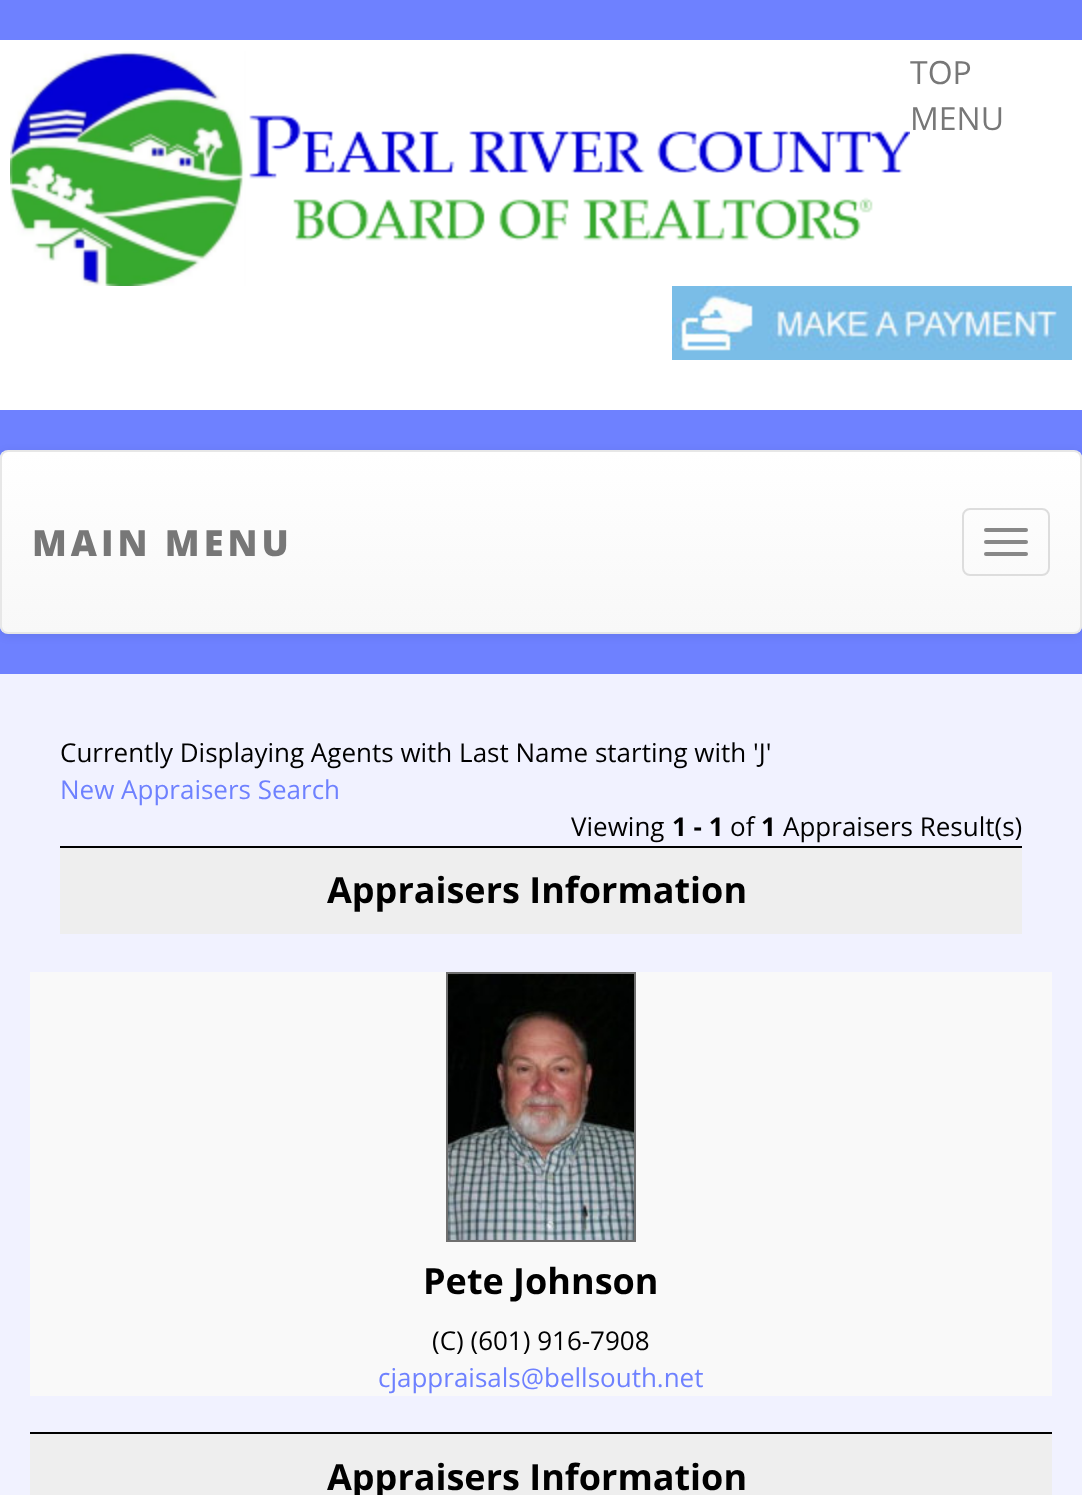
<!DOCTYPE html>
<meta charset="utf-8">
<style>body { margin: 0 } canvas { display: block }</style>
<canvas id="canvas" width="1082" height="1495"></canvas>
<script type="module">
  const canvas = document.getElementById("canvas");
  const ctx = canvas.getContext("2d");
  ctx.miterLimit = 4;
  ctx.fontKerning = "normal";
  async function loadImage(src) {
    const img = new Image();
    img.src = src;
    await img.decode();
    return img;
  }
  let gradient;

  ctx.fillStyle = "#6e81ff";
  ctx.fillRect(0, 0, 1082, 1495);
  ctx.fillStyle = "#ffffff";
  ctx.fillRect(0, 40, 1082, 370);
  ctx.drawImage(await loadImage("img1.png"), 10, 51, 900, 235);
  ctx.font = "32px Open Sans";
  ctx.fillStyle = "#777777";
  ctx.fillText("TOP", 910, 84);
  ctx.fillText("MENU", 910, 130);
  ctx.drawImage(await loadImage("img2.png"), 672, 286, 400, 74);
  ctx.fillStyle = "rgba(0, 0, 0, 0.07)";
  ctx.filter = "blur(5px)";
  ctx.beginPath();
  ctx.roundRect(0, 452, 1082, 184, 8);
  ctx.fill();
  ctx.filter = "none";
  ctx.save();
  ctx.beginPath();
  ctx.roundRect(0, 450, 1082, 184, 8);
  ctx.clip();
  gradient = ctx.createLinearGradient(541, 452, 541, 632);
  gradient.addColorStop(0, "#ffffff");
  gradient.addColorStop(1, "#f8f8f8");
  ctx.fillStyle = gradient;
  ctx.fillRect(0, 452, 1082, 180);
  ctx.restore();
  ctx.beginPath();
  ctx.roundRect(1, 451, 1080, 182, 7);
  ctx.strokeStyle = "#e7e7e7";
  ctx.lineWidth = 2;
  ctx.stroke();
  ctx.letterSpacing = "4px";
  ctx.font = "800 36px Open Sans";
  ctx.fillStyle = "#777777";
  ctx.fillText("MAIN MENU", 32, 556);
  ctx.beginPath();
  ctx.roundRect(963, 509, 86, 66, 7);
  ctx.strokeStyle = "#dddddd";
  ctx.stroke();
  ctx.fillStyle = "#888888";
  ctx.beginPath();
  ctx.roundRect(984, 528, 44, 4, 2);
  ctx.fill();
  ctx.beginPath();
  ctx.roundRect(984, 540, 44, 4, 2);
  ctx.fill();
  ctx.beginPath();
  ctx.roundRect(984, 552, 44, 4, 2);
  ctx.fill();
  ctx.fillStyle = "#f1f2ff";
  ctx.fillRect(0, 674, 1082, 821);
  ctx.letterSpacing = "0px";
  ctx.font = "26px Open Sans";
  ctx.fillStyle = "#000000";
  ctx.fillText("Currently Displaying Agents with Last Name starting with 'J'", 60, 762);
  ctx.fillStyle = "#6e81ff";
  ctx.fillText("New Appraisers Search", 60, 799);
  ctx.fillStyle = "#000000";
  ctx.fillText("Viewing", 571, 836);
  ctx.font = "bold 26px Open Sans";
  ctx.fillText("1 - 1", 672, 836);
  ctx.font = "26px Open Sans";
  ctx.fillText("of", 730, 836);
  ctx.font = "bold 26px Open Sans";
  ctx.fillText("1", 761, 836);
  ctx.font = "26px Open Sans";
  ctx.fillText("Appraisers Result(s)", 783, 836);
  ctx.fillStyle = "#eeeeee";
  ctx.fillRect(60, 848, 962, 86);
  ctx.fillStyle = "#000000";
  ctx.fillRect(60, 846, 962, 2);
  ctx.font = "bold 36px Open Sans";
  ctx.fillText("Appraisers Information", 327, 903);
  ctx.fillStyle = "#f9f9f9";
  ctx.fillRect(30, 972, 1022, 424);
  ctx.strokeStyle = "#6f6f6f";
  ctx.strokeRect(447, 973, 188, 268);
  ctx.drawImage(await loadImage("img3.png"), 448, 974, 186, 266);
  ctx.fillStyle = "#000000";
  ctx.fillText("Pete Johnson", 423, 1294);
  ctx.font = "26px Open Sans";
  ctx.fillText("(C) (601) 916-7908", 432, 1350);
  ctx.fillStyle = "#6e81ff";
  ctx.fillText("cjappraisals@bellsouth.net", 378, 1387);
  ctx.fillStyle = "#eeeeee";
  ctx.fillRect(30, 1434, 1022, 61);
  ctx.fillStyle = "#000000";
  ctx.fillRect(30, 1432, 1022, 2);
  ctx.font = "bold 36px Open Sans";
  ctx.fillText("Appraisers Information", 327, 1490);
</script>
